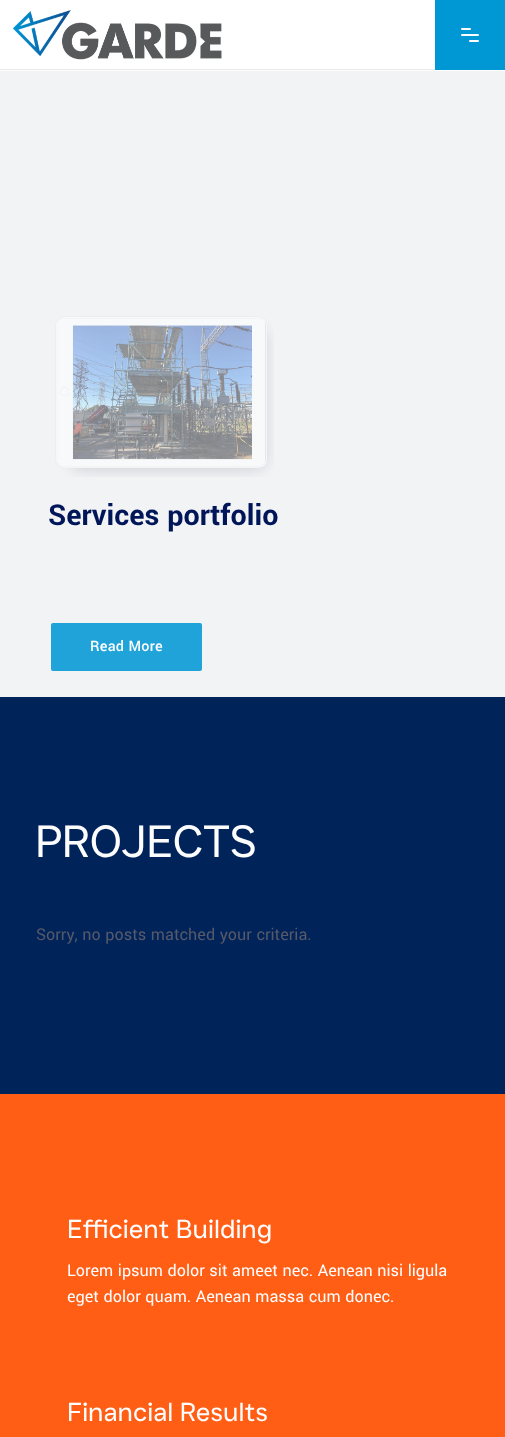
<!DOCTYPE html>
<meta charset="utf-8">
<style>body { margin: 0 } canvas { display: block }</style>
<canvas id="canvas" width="505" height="1437"></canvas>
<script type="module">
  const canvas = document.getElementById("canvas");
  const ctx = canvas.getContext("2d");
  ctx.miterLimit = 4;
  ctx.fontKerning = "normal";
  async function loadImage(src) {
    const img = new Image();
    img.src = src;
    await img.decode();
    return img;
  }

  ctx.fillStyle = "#ffffff";
  ctx.fillRect(0, 0, 505, 1437);
  ctx.fillStyle = "#e8e8e9";
  ctx.fillRect(0, 69, 435, 1);
  ctx.drawImage(await loadImage("img1.png"), 12, 10, 210, 50);
  ctx.fillStyle = "#0097d5";
  ctx.fillRect(435, 0, 70, 70);
  ctx.fillStyle = "#ffffff";
  ctx.beginPath();
  ctx.roundRect(461, 28, 10, 2, 1);
  ctx.fill();
  ctx.beginPath();
  ctx.roundRect(461, 34, 18, 2, 1);
  ctx.fill();
  ctx.beginPath();
  ctx.roundRect(469, 40, 10, 2, 1);
  ctx.fill();
  ctx.fillStyle = "#f2f3f5";
  ctx.fillRect(0, 71, 505, 626);
  ctx.drawImage(await loadImage("img2.png"), 55, 316, 219, 161);
  ctx.font = "bold 32px Yantramanav";
  ctx.fillStyle = "#001659";
  ctx.fillText("Services portfolio", 48, 525);
  ctx.fillStyle = "#1fa3d9";
  ctx.beginPath();
  ctx.roundRect(51, 623, 151, 48, 2);
  ctx.fill();
  ctx.letterSpacing = "0.25px";
  ctx.font = "500 16px Yantramanav";
  ctx.fillStyle = "#fdfdfe";
  ctx.fillText("Read More", 90, 651);
  ctx.fillStyle = "#00235a";
  ctx.fillRect(0, 697, 505, 397);
  ctx.letterSpacing = "-0.5px";
  ctx.font = "45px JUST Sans";
  ctx.fillStyle = "#fdfdfe";
  ctx.fillText("PROJECTS", 35, 857);
  ctx.letterSpacing = "0px";
  ctx.font = "18px Yantramanav";
  ctx.fillStyle = "#565969";
  ctx.fillText("Sorry, no posts matched your criteria.", 36, 940);
  ctx.fillStyle = "#ff5e14";
  ctx.fillRect(0, 1094, 505, 343);
  ctx.font = "26px JUST Sans";
  ctx.fillStyle = "#fdfdfe";
  ctx.fillText("Efficient Building", 67, 1238);
  ctx.font = "18px Yantramanav";
  ctx.fillText("Lorem ipsum dolor sit ameet nec. Aenean nisi ligula", 67, 1276);
  ctx.fillText("eget dolor quam. Aenean massa cum donec.", 67, 1302);
  ctx.font = "26px JUST Sans";
  ctx.fillText("Financial Results", 67, 1421);
</script>
